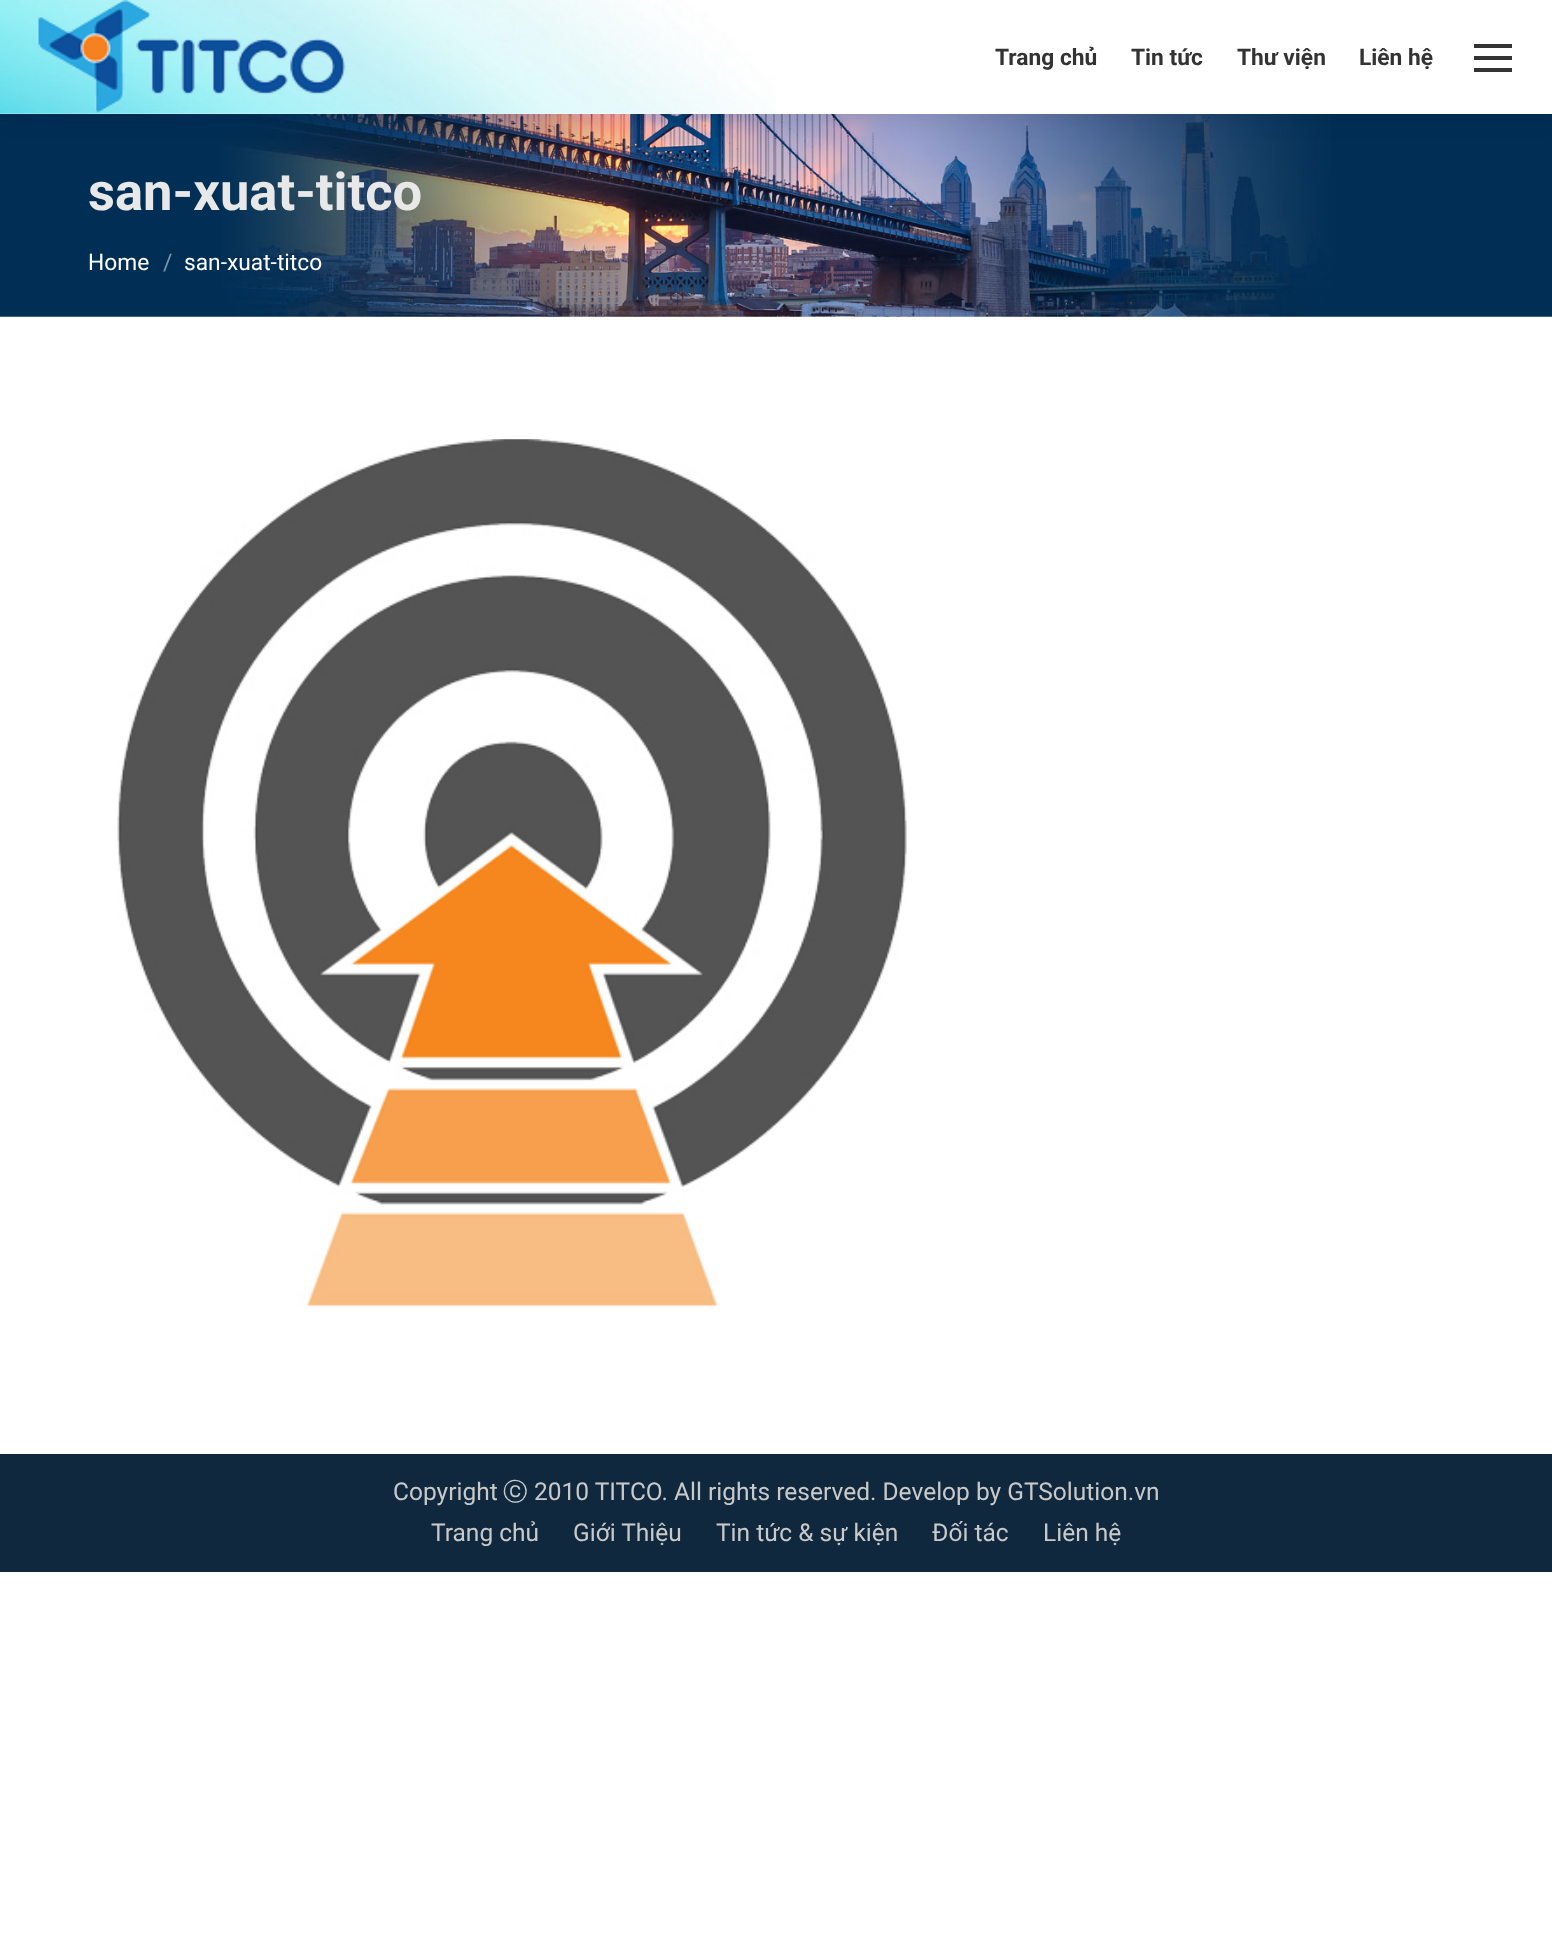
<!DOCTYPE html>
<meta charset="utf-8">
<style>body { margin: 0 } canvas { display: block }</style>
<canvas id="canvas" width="1552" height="1946"></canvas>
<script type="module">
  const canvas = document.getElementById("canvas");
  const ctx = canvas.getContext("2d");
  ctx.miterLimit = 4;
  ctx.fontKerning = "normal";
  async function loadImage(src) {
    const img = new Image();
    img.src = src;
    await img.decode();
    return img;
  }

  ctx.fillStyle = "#ffffff";
  ctx.fillRect(0, 0, 1552, 1946);
  ctx.drawImage(await loadImage("img3.png"), 0, 114, 1552, 203);
  ctx.fillStyle = "rgba(0, 0, 0, 0.07)";
  ctx.filter = "blur(13px)";
  ctx.beginPath();
  ctx.rect(-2, -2, 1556, 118);
  ctx.fill();
  ctx.filter = "none";
  ctx.fillStyle = "#ffffff";
  ctx.fillRect(0, 0, 1552, 114);
  ctx.drawImage(await loadImage("img1.png"), 0, 0, 776, 114);
  ctx.drawImage(await loadImage("img2.png"), 36, 0, 310, 114);
  ctx.font = "bold 22.75px Roboto";
  ctx.fillStyle = "#333333";
  ctx.fillText("Trang chủ", 995, 65);
  ctx.fillText("Tin tức", 1131, 65);
  ctx.fillText("Thư viện", 1237, 65);
  ctx.fillText("Liên hệ", 1359, 65);
  ctx.fillRect(1474, 44, 38, 4);
  ctx.fillRect(1474, 56, 38, 4);
  ctx.fillRect(1474, 68, 38, 4);
  ctx.font = "bold 52.5px Roboto";
  ctx.fillStyle = "#e8e8e8";
  ctx.fillText("san-xuat-titco", 88, 210);
  ctx.font = "22.75px Roboto";
  ctx.fillStyle = "#ffffff";
  ctx.fillText("Home", 88, 270);
  ctx.fillStyle = "#8097aa";
  ctx.fillText("/", 163, 270);
  ctx.fillStyle = "#ffffff";
  ctx.fillText("san-xuat-titco", 184, 270);
  ctx.drawImage(await loadImage("img4.png"), 117, 439, 790, 869);
  ctx.fillStyle = "#0f283d";
  ctx.fillRect(0, 1454, 1552, 118);
  ctx.font = "24.5px Roboto";
  ctx.fillStyle = "#c9c9c9";
  ctx.fillText("Copyright", 393, 1500);
  ctx.font = "500 24.5px WenQuanYi Zen Hei";
  ctx.fillText("ⓒ", 503, 1500);
  ctx.font = "24.5px Roboto";
  ctx.fillText("2010 TITCO. All rights reserved. Develop by GTSolution.vn", 534, 1500);
  ctx.fillText("Trang chủ", 431, 1541);
  ctx.fillText("Giới Thiệu", 573, 1541);
  ctx.fillText("Tin tức & sự kiện", 716, 1541);
  ctx.fillText("Đối tác", 932, 1541);
  ctx.fillText("Liên hệ", 1043, 1541);
</script>
